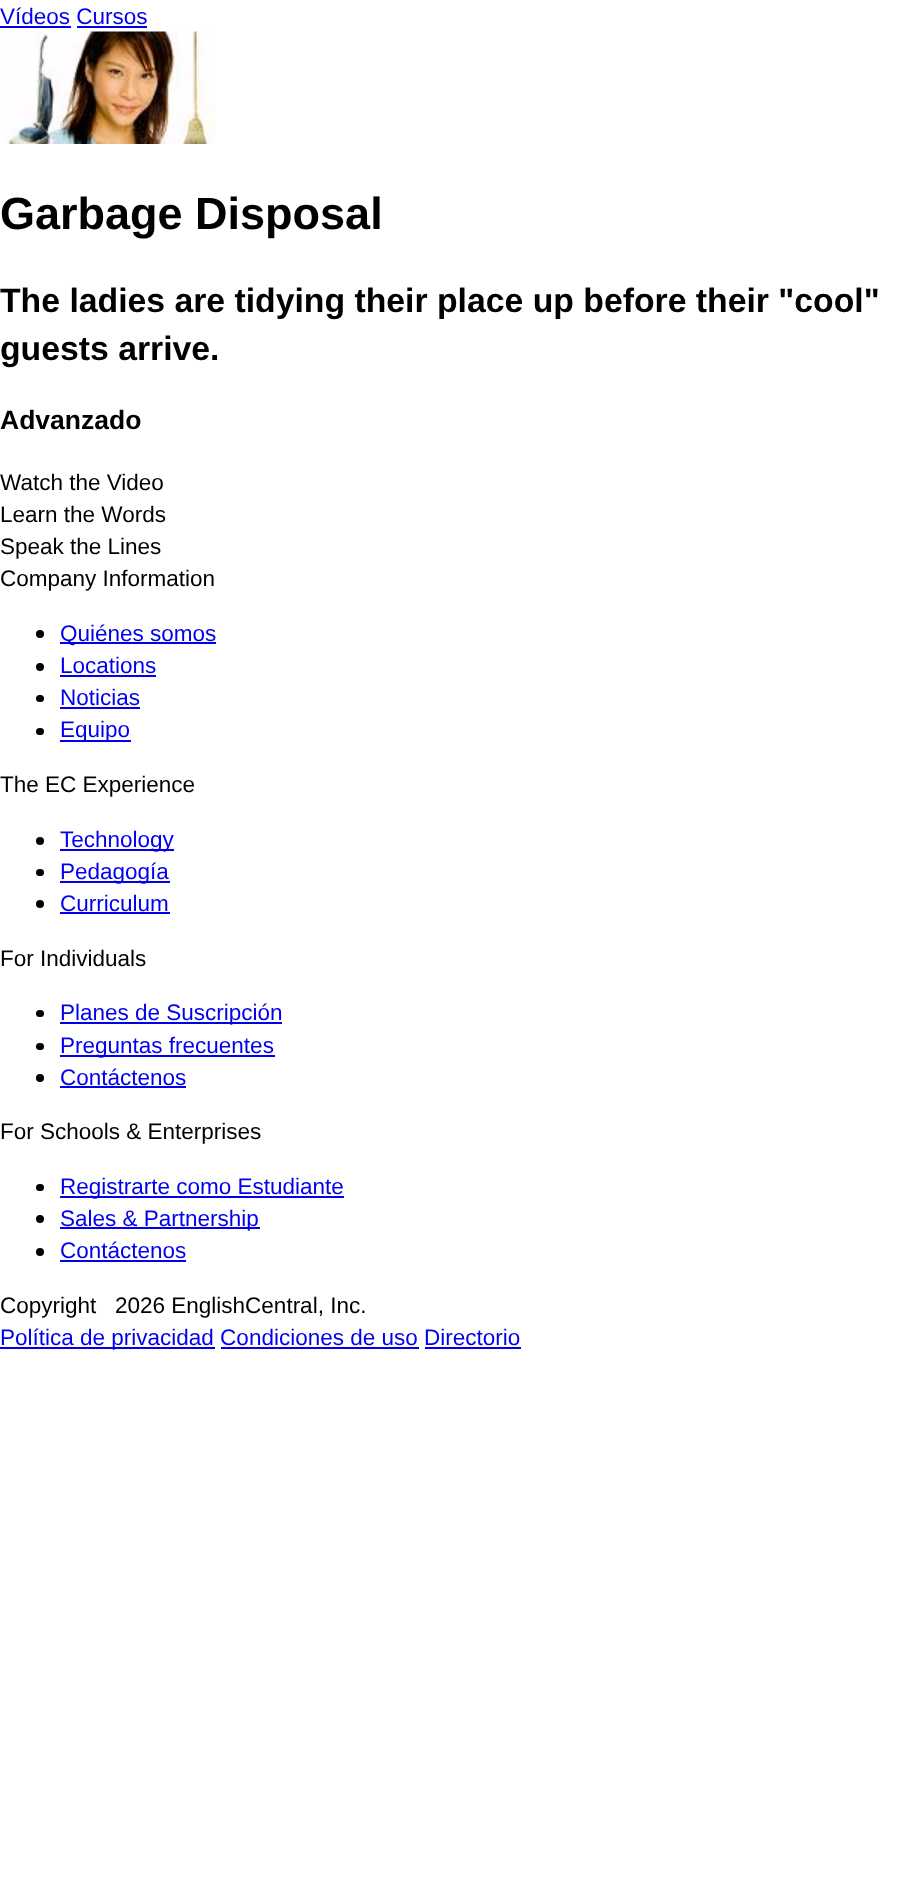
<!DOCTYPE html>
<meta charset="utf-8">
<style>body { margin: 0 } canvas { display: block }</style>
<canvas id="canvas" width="901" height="1890"></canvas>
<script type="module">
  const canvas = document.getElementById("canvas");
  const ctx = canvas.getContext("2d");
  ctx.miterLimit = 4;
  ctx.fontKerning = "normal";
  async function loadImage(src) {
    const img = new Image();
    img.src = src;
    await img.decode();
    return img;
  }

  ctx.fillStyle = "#ffffff";
  ctx.fillRect(0, 0, 901, 1890);
  ctx.font = "22.5px Liberation Sans";
  ctx.fillStyle = "#0000ee";
  ctx.fillText("Vídeos Cursos", 0, 24);
  ctx.fillRect(0, 26, 71, 2);
  ctx.fillRect(77, 26, 70, 2);
  ctx.drawImage(await loadImage("img1.png"), 2, 31, 214, 113);
  ctx.font = "bold 45px Liberation Sans";
  ctx.fillStyle = "#000000";
  ctx.fillText("Garbage Disposal", 0, 229);
  ctx.font = "bold 33.75px Liberation Sans";
  ctx.fillText("The ladies are tidying their place up before their \"cool\"", 0, 312);
  ctx.fillText("guests arrive.", 0, 360);
  ctx.font = "bold 26.5px Liberation Sans";
  ctx.fillText("Advanzado", 0, 429);
  ctx.font = "22.5px Liberation Sans";
  ctx.fillText("Watch the Video", 0, 490);
  ctx.fillText("Learn the Words", 0, 522);
  ctx.fillText("Speak the Lines", 0, 554);
  ctx.fillText("Company Information", 0, 586);
  ctx.beginPath();
  ctx.arc(40, 634, 4, 0, Math.PI * 2);
  ctx.fill();
  ctx.fillStyle = "#0000ee";
  ctx.fillRect(60, 642, 156, 2);
  ctx.fillText("Quiénes somos", 60, 641);
  ctx.fillStyle = "#000000";
  ctx.beginPath();
  ctx.arc(40, 667, 4, 0, Math.PI * 2);
  ctx.fill();
  ctx.fillStyle = "#0000ee";
  ctx.fillText("Locations", 60, 673);
  ctx.fillRect(60, 675, 96, 2);
  ctx.fillStyle = "#000000";
  ctx.beginPath();
  ctx.roundRect(36, 695, 8, 7, 3.5);
  ctx.fill();
  ctx.fillStyle = "#0000ee";
  ctx.fillText("Noticias", 60, 705);
  ctx.fillRect(60, 707, 80, 2);
  ctx.fillStyle = "#000000";
  ctx.beginPath();
  ctx.roundRect(36, 728, 8, 7, 3.5);
  ctx.fill();
  ctx.fillStyle = "#0000ee";
  ctx.fillRect(60, 740, 71, 2);
  ctx.fillText("Equipo", 60, 737);
  ctx.fillStyle = "#000000";
  ctx.fillText("The EC Experience", 0, 792);
  ctx.beginPath();
  ctx.arc(40, 841, 4, 0, Math.PI * 2);
  ctx.fill();
  ctx.fillStyle = "#0000ee";
  ctx.fillRect(60, 849, 114, 2);
  ctx.fillText("Technology", 60, 847);
  ctx.fillStyle = "#000000";
  ctx.beginPath();
  ctx.roundRect(36, 869, 8, 7, 3.5);
  ctx.fill();
  ctx.fillStyle = "#0000ee";
  ctx.fillRect(60, 881, 110, 2);
  ctx.fillText("Pedagogía", 60, 879);
  ctx.fillStyle = "#000000";
  ctx.beginPath();
  ctx.arc(40, 904, 4, 0, Math.PI * 2);
  ctx.fill();
  ctx.fillStyle = "#0000ee";
  ctx.fillText("Curriculum", 60, 911);
  ctx.fillRect(60, 912, 110, 2);
  ctx.fillStyle = "#000000";
  ctx.fillText("For Individuals", 0, 966);
  ctx.beginPath();
  ctx.roundRect(36, 1010, 8, 7, 3.5);
  ctx.fill();
  ctx.fillStyle = "#0000ee";
  ctx.fillRect(60, 1022, 222, 2);
  ctx.fillText("Planes de Suscripción", 60, 1020);
  ctx.fillStyle = "#000000";
  ctx.beginPath();
  ctx.roundRect(36, 1043, 8, 7, 3.5);
  ctx.fill();
  ctx.fillStyle = "#0000ee";
  ctx.fillRect(60, 1055, 215, 2);
  ctx.fillText("Preguntas frecuentes", 60, 1053);
  ctx.fillStyle = "#000000";
  ctx.beginPath();
  ctx.arc(40, 1078, 4, 0, Math.PI * 2);
  ctx.fill();
  ctx.fillStyle = "#0000ee";
  ctx.fillText("Contáctenos", 60, 1085);
  ctx.fillRect(60, 1086, 126, 2);
  ctx.fillStyle = "#000000";
  ctx.fillText("For Schools & Enterprises", 0, 1139);
  ctx.beginPath();
  ctx.roundRect(36, 1184, 8, 7, 3.5);
  ctx.fill();
  ctx.fillStyle = "#0000ee";
  ctx.fillRect(60, 1196, 284, 2);
  ctx.fillText("Registrarte como Estudiante", 60, 1194);
  ctx.fillStyle = "#000000";
  ctx.beginPath();
  ctx.arc(40, 1219, 4, 0, Math.PI * 2);
  ctx.fill();
  ctx.fillStyle = "#0000ee";
  ctx.fillRect(60, 1227, 200, 2);
  ctx.fillText("Sales & Partnership", 60, 1226);
  ctx.fillStyle = "#000000";
  ctx.beginPath();
  ctx.arc(40, 1252, 4, 0, Math.PI * 2);
  ctx.fill();
  ctx.fillStyle = "#0000ee";
  ctx.fillText("Contáctenos", 60, 1258);
  ctx.fillRect(60, 1260, 126, 2);
  ctx.fillStyle = "#000000";
  ctx.fillText("Copyright", 0, 1313);
  ctx.fillText("2026 EnglishCentral, Inc.", 115, 1313);
  ctx.fillStyle = "#0000ee";
  ctx.fillRect(0, 1347, 215, 2);
  ctx.fillText("Política de privacidad Condiciones de uso Directorio", 0, 1345);
  ctx.fillRect(221, 1347, 198, 2);
  ctx.fillRect(425, 1347, 96, 2);
</script>
